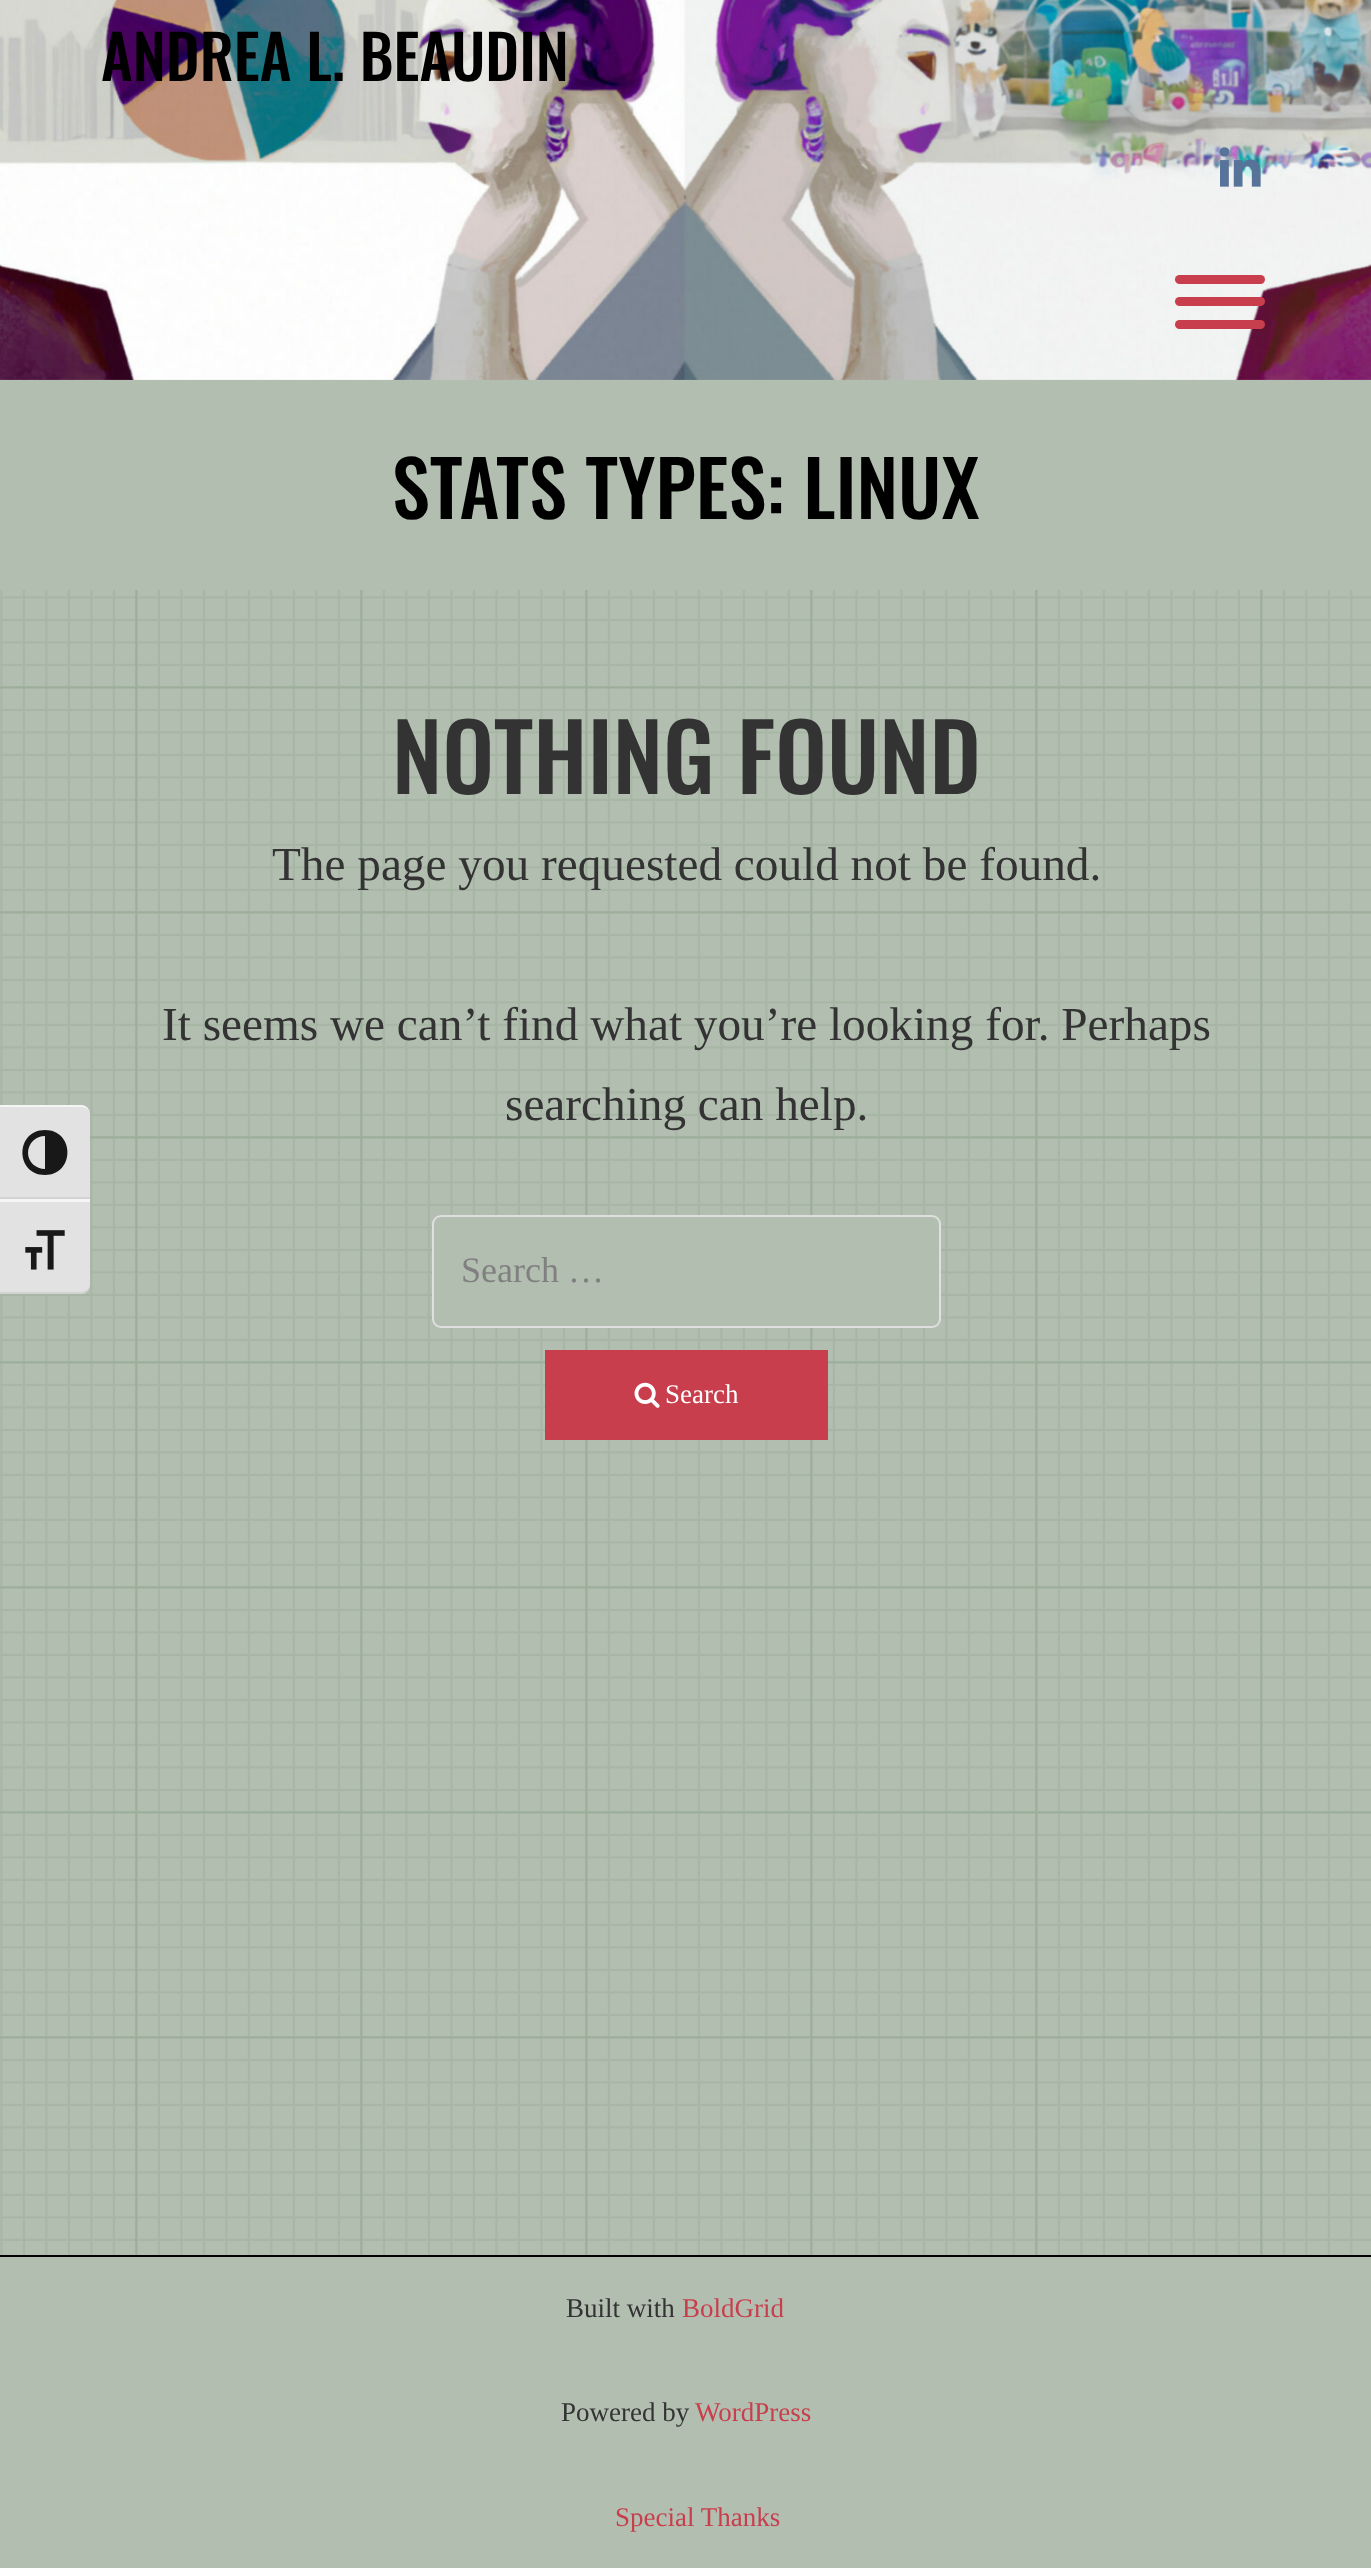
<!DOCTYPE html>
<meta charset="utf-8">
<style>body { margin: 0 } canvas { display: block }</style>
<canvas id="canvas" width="1371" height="2568"></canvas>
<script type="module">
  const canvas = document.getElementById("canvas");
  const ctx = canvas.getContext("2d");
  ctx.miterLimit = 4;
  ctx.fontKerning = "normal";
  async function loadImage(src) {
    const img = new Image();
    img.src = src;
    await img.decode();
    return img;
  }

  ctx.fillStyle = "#b2bfb0";
  ctx.fillRect(0, 0, 1371, 2568);
  ctx.drawImage(await loadImage("img1.png"), 0, 379, 1371, 1876);
  ctx.fillStyle = "#e2e2e2";
  ctx.beginPath();
  ctx.roundRect(0, 1105, 90, 94, [0, 9, 0, 0]);
  ctx.fill();
  ctx.fillStyle = "#f5f5f5";
  ctx.beginPath();
  ctx.moveTo(0, 1107);
  ctx.lineTo(81, 1107);
  ctx.bezierCurveTo(86, 1107, 90, 1110, 90, 1114);
  ctx.bezierCurveTo(90, 1109, 86, 1105, 81, 1105);
  ctx.lineTo(0, 1105);
  ctx.closePath();
  ctx.fill();
  ctx.fillStyle = "#d2d2d2";
  ctx.fillRect(0, 1197, 90, 2);
  ctx.fillStyle = "#181818";
  ctx.beginPath();
  ctx.moveTo(45, 1130);
  ctx.bezierCurveTo(15, 1130, 15, 1175, 45, 1175);
  ctx.bezierCurveTo(75, 1175, 75, 1130, 45, 1130);
  ctx.closePath();
  ctx.moveTo(28, 1153);
  ctx.bezierCurveTo(28, 1143, 36, 1136, 45, 1136);
  ctx.lineTo(45, 1169);
  ctx.bezierCurveTo(36, 1169, 28, 1162, 28, 1153);
  ctx.closePath();
  ctx.fill();
  ctx.fillStyle = "#e2e2e2";
  ctx.beginPath();
  ctx.roundRect(0, 1199, 90, 95, [0, 0, 9, 0]);
  ctx.fill();
  ctx.fillStyle = "#f5f5f5";
  ctx.fillRect(0, 1199, 90, 3);
  ctx.fillStyle = "#d2d2d2";
  ctx.beginPath();
  ctx.moveTo(83, 1294);
  ctx.bezierCurveTo(87, 1293, 90, 1289, 90, 1285);
  ctx.bezierCurveTo(90, 1288, 86, 1292, 81, 1292);
  ctx.lineTo(0, 1292);
  ctx.lineTo(0, 1294);
  ctx.closePath();
  ctx.fill();
  ctx.drawImage(await loadImage("img2.png"), 25, 1230, 40, 40);
  ctx.drawImage(await loadImage("img3.png"), 0, 0, 1371, 380);
  ctx.font = "500 60.75px Oswald";
  ctx.fillStyle = "#000000";
  ctx.fillText("ANDREA L. BEAUDIN", 101, 81);
  ctx.drawImage(await loadImage("img4.png"), 1219, 147, 42, 40);
  ctx.fillStyle = "#c83e4d";
  ctx.beginPath();
  ctx.roundRect(1175, 320, 90, 9, 4.5);
  ctx.fill();
  ctx.beginPath();
  ctx.roundRect(1175, 275, 90, 9, 4.5);
  ctx.fill();
  ctx.beginPath();
  ctx.roundRect(1175, 297, 90, 9, 4.5);
  ctx.fill();
  ctx.fillStyle = "#b2bfb0";
  ctx.fillRect(0, 380, 1371, 210);
  ctx.font = "500 76.5px Oswald";
  ctx.fillStyle = "#000000";
  ctx.fillText("STATS TYPES: LINUX", 392, 519);
  ctx.font = "500 92.25px Oswald";
  ctx.fillStyle = "#333333";
  ctx.fillText("NOTHING FOUND", 392, 794);
  ctx.font = "47.25px Liberation Serif";
  ctx.fillText("The page you requested could not be found.", 272, 880);
  ctx.fillText("It seems we can’t find what you’re looking for. Perhaps", 162, 1040);
  ctx.fillText("searching can help.", 505, 1120);
  ctx.fillStyle = "#b2bfb0";
  ctx.beginPath();
  ctx.roundRect(433, 1216, 507, 111, 8);
  ctx.fill();
  ctx.strokeStyle = "#dfdfdf";
  ctx.lineWidth = 2;
  ctx.stroke();
  ctx.font = "36px Liberation Serif";
  ctx.fillStyle = "#808080";
  ctx.fillText("Search …", 461, 1282);
  ctx.fillStyle = "#c83e4d";
  ctx.fillRect(545, 1350, 283, 90);
  ctx.drawImage(await loadImage("img5.png"), 634, 1382, 26, 26);
  ctx.font = "27px Liberation Serif";
  ctx.fillStyle = "#ffffff";
  ctx.fillText("Search", 665, 1403);
  ctx.fillStyle = "#000000";
  ctx.fillRect(0, 2255, 1371, 2);
  ctx.fillStyle = "#333333";
  ctx.fillText("Built with", 566, 2317);
  ctx.fillStyle = "#c83e4d";
  ctx.fillText("BoldGrid", 682, 2317);
  ctx.fillStyle = "#333333";
  ctx.fillText("Powered by", 561, 2421);
  ctx.fillStyle = "#c83e4d";
  ctx.fillText("WordPress", 695, 2421);
  ctx.fillText("Special Thanks", 615, 2526);
</script>
